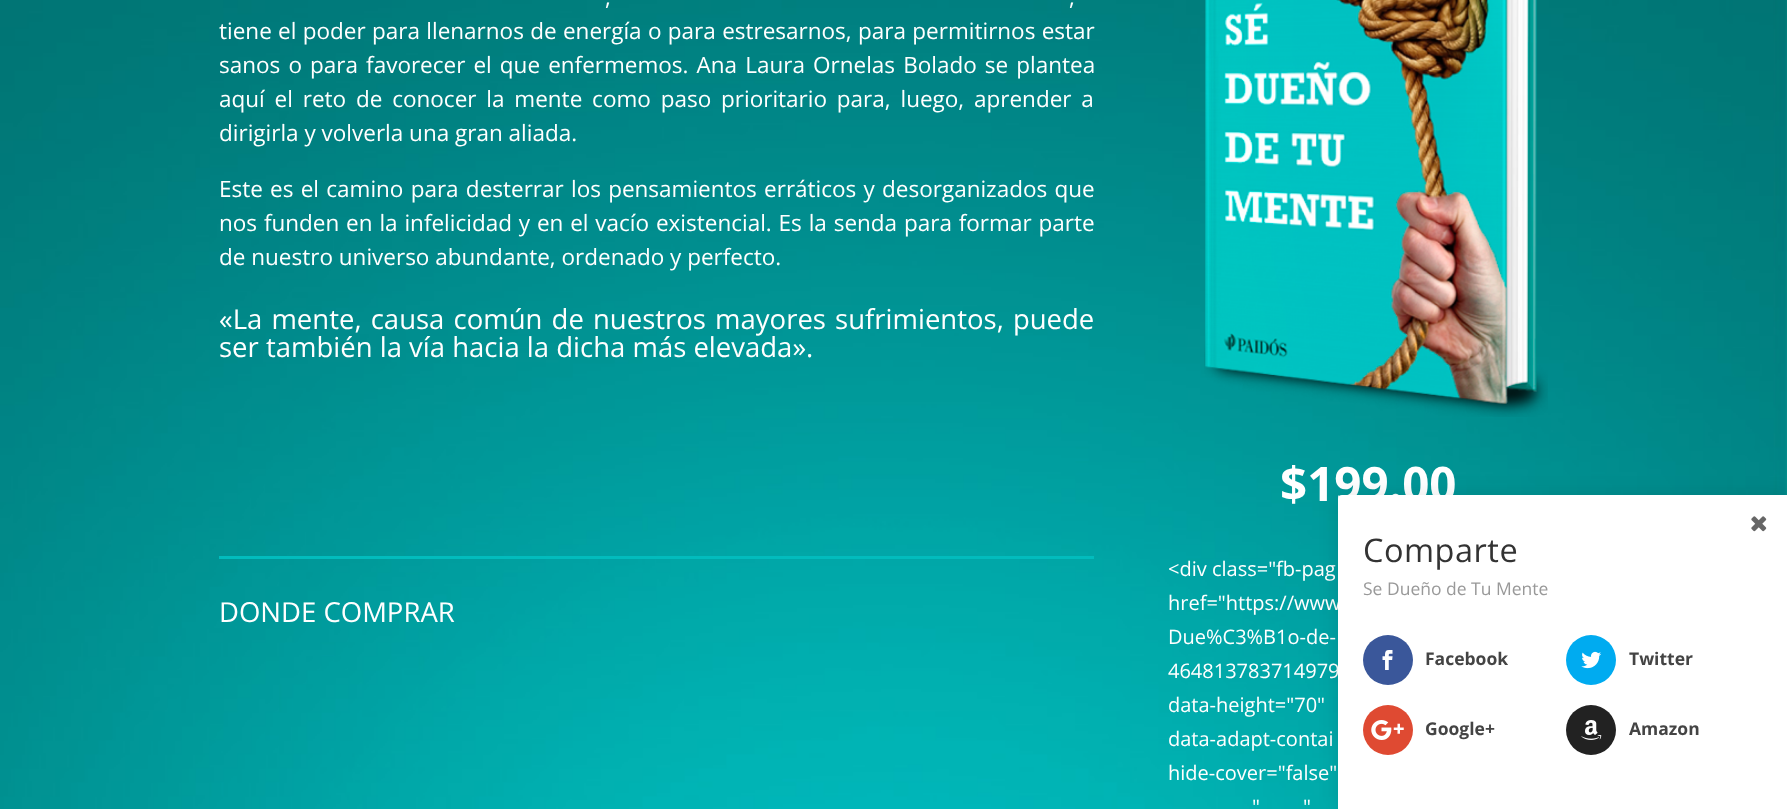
<!DOCTYPE html>
<meta charset="utf-8">
<style>body { margin: 0 } canvas { display: block }</style>
<canvas id="canvas" width="1787" height="809"></canvas>
<script type="module">
  const canvas = document.getElementById("canvas");
  const ctx = canvas.getContext("2d");
  ctx.miterLimit = 4;
  ctx.fontKerning = "normal";
  async function loadImage(src) {
    const img = new Image();
    img.src = src;
    await img.decode();
    return img;
  }

  ctx.fillStyle = "#ffffff";
  ctx.fillRect(0, 0, 1787, 809);
  ctx.drawImage(await loadImage("img1.png"), 0, 0, 1787, 809);
  ctx.wordSpacing = "2.25px";
  ctx.font = "22.5px Open Sans";
  ctx.fillText(",", 605, 5);
  ctx.fillText(",", 1069, 5);
  ctx.wordSpacing = "0.5px";
  ctx.fillText("tiene el poder para llenarnos de energía o para estresarnos, para permitirnos estar", 219, 39);
  ctx.wordSpacing = "2.25px";
  ctx.fillText("sanos o para favorecer el que enfermemos. Ana Laura Ornelas Bolado se plantea", 219, 73);
  ctx.wordSpacing = "4px";
  ctx.fillText("aquí el reto de conocer la mente como paso prioritario para, luego, aprender a", 219, 107);
  ctx.wordSpacing = "0px";
  ctx.fillText("dirigirla y volverla una gran aliada.", 219, 141);
  ctx.wordSpacing = "1.4px";
  ctx.fillText("Este es el camino para desterrar los pensamientos erráticos y desorganizados que", 219, 197);
  ctx.wordSpacing = "1px";
  ctx.fillText("nos funden en la infelicidad y en el vacío existencial. Es la senda para formar parte", 219, 231);
  ctx.wordSpacing = "0px";
  ctx.fillText("de nuestro universo abundante, ordenado y perfecto.", 219, 265);
  ctx.wordSpacing = "2px";
  ctx.font = "27.5px Open Sans";
  ctx.fillText("«La mente, causa común de nuestros mayores sufrimientos, puede", 219, 329);
  ctx.wordSpacing = "0px";
  ctx.fillText("ser también la vía hacia la dicha más elevada».", 219, 357);
  ctx.drawImage(await loadImage("img2.png"), 1204, 0, 344, 417);
  ctx.font = "bold 47.5px Open Sans";
  ctx.fillText("$199.00", 1280, 501);
  ctx.fillStyle = "#02bcbd";
  ctx.fillRect(219, 556, 875, 3);
  ctx.font = "27.5px Open Sans";
  ctx.fillStyle = "#ffffff";
  ctx.fillText("DONDE COMPRAR", 219, 622);
  ctx.font = "20px Open Sans";
  ctx.fillText("<div class=\"fb-pag", 1168, 576);
  ctx.fillText("href=\"https://www", 1168, 610);
  ctx.fillText("Due%C3%B1o-de-", 1168, 644);
  ctx.fillText("464813783714979", 1168, 678);
  ctx.fillText("data-height=\"70\"", 1168, 712);
  ctx.fillText("data-adapt-contai", 1168, 746);
  ctx.fillText("hide-cover=\"false\"", 1168, 780);
  ctx.fillText("\"", 1252, 814);
  ctx.fillText("\"", 1303, 814);
  ctx.fillStyle = "rgba(0, 0, 0, 0.1)";
  ctx.filter = "blur(9.5px)";
  ctx.beginPath();
  ctx.roundRect(1338, 495, 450, 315, 4);
  ctx.fill();
  ctx.filter = "none";
  ctx.fillStyle = "#ffffff";
  ctx.beginPath();
  ctx.moveTo(1342, 495);
  ctx.lineTo(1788, 495);
  ctx.lineTo(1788, 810);
  ctx.lineTo(1338, 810);
  ctx.lineTo(1338, 499);
  ctx.bezierCurveTo(1338, 497, 1340, 495, 1342, 495);
  ctx.closePath();
  ctx.fill();
  ctx.drawImage(await loadImage("img3.png"), 1751, 516, 16, 16);
  ctx.letterSpacing = "0.5px";
  ctx.font = "32.5px Open Sans";
  ctx.fillStyle = "#333333";
  ctx.fillText("Comparte", 1363, 562);
  ctx.letterSpacing = "0px";
  ctx.font = "17.5px Open Sans";
  ctx.fillStyle = "#999999";
  ctx.fillText("Se Dueño de Tu Mente", 1363, 595);
  ctx.fillStyle = "#3a579a";
  ctx.beginPath();
  ctx.arc(1388, 660, 25, 0, Math.PI * 2);
  ctx.fill();
  ctx.drawImage(await loadImage("img4.png"), 1382, 650, 11, 20);
  ctx.font = "bold 17.5px Open Sans";
  ctx.fillStyle = "#444444";
  ctx.fillText("Facebook", 1425, 665);
  ctx.fillStyle = "#00abf0";
  ctx.beginPath();
  ctx.arc(1591, 660, 25, 0, Math.PI * 2);
  ctx.fill();
  ctx.drawImage(await loadImage("img5.png"), 1581, 651, 21, 18);
  ctx.fillStyle = "#444444";
  ctx.fillText("Twitter", 1629, 665);
  ctx.fillStyle = "#df4a32";
  ctx.beginPath();
  ctx.arc(1388, 730, 25, 0, Math.PI * 2);
  ctx.fill();
  ctx.drawImage(await loadImage("img6.png"), 1371, 720, 33, 20);
  ctx.fillStyle = "#444444";
  ctx.fillText("Google+", 1425, 735);
  ctx.fillStyle = "#222222";
  ctx.beginPath();
  ctx.arc(1591, 730, 25, 0, Math.PI * 2);
  ctx.fill();
  ctx.drawImage(await loadImage("img7.png"), 1581, 720, 21, 20);
  ctx.fillStyle = "#444444";
  ctx.fillText("Amazon", 1629, 735);
</script>
